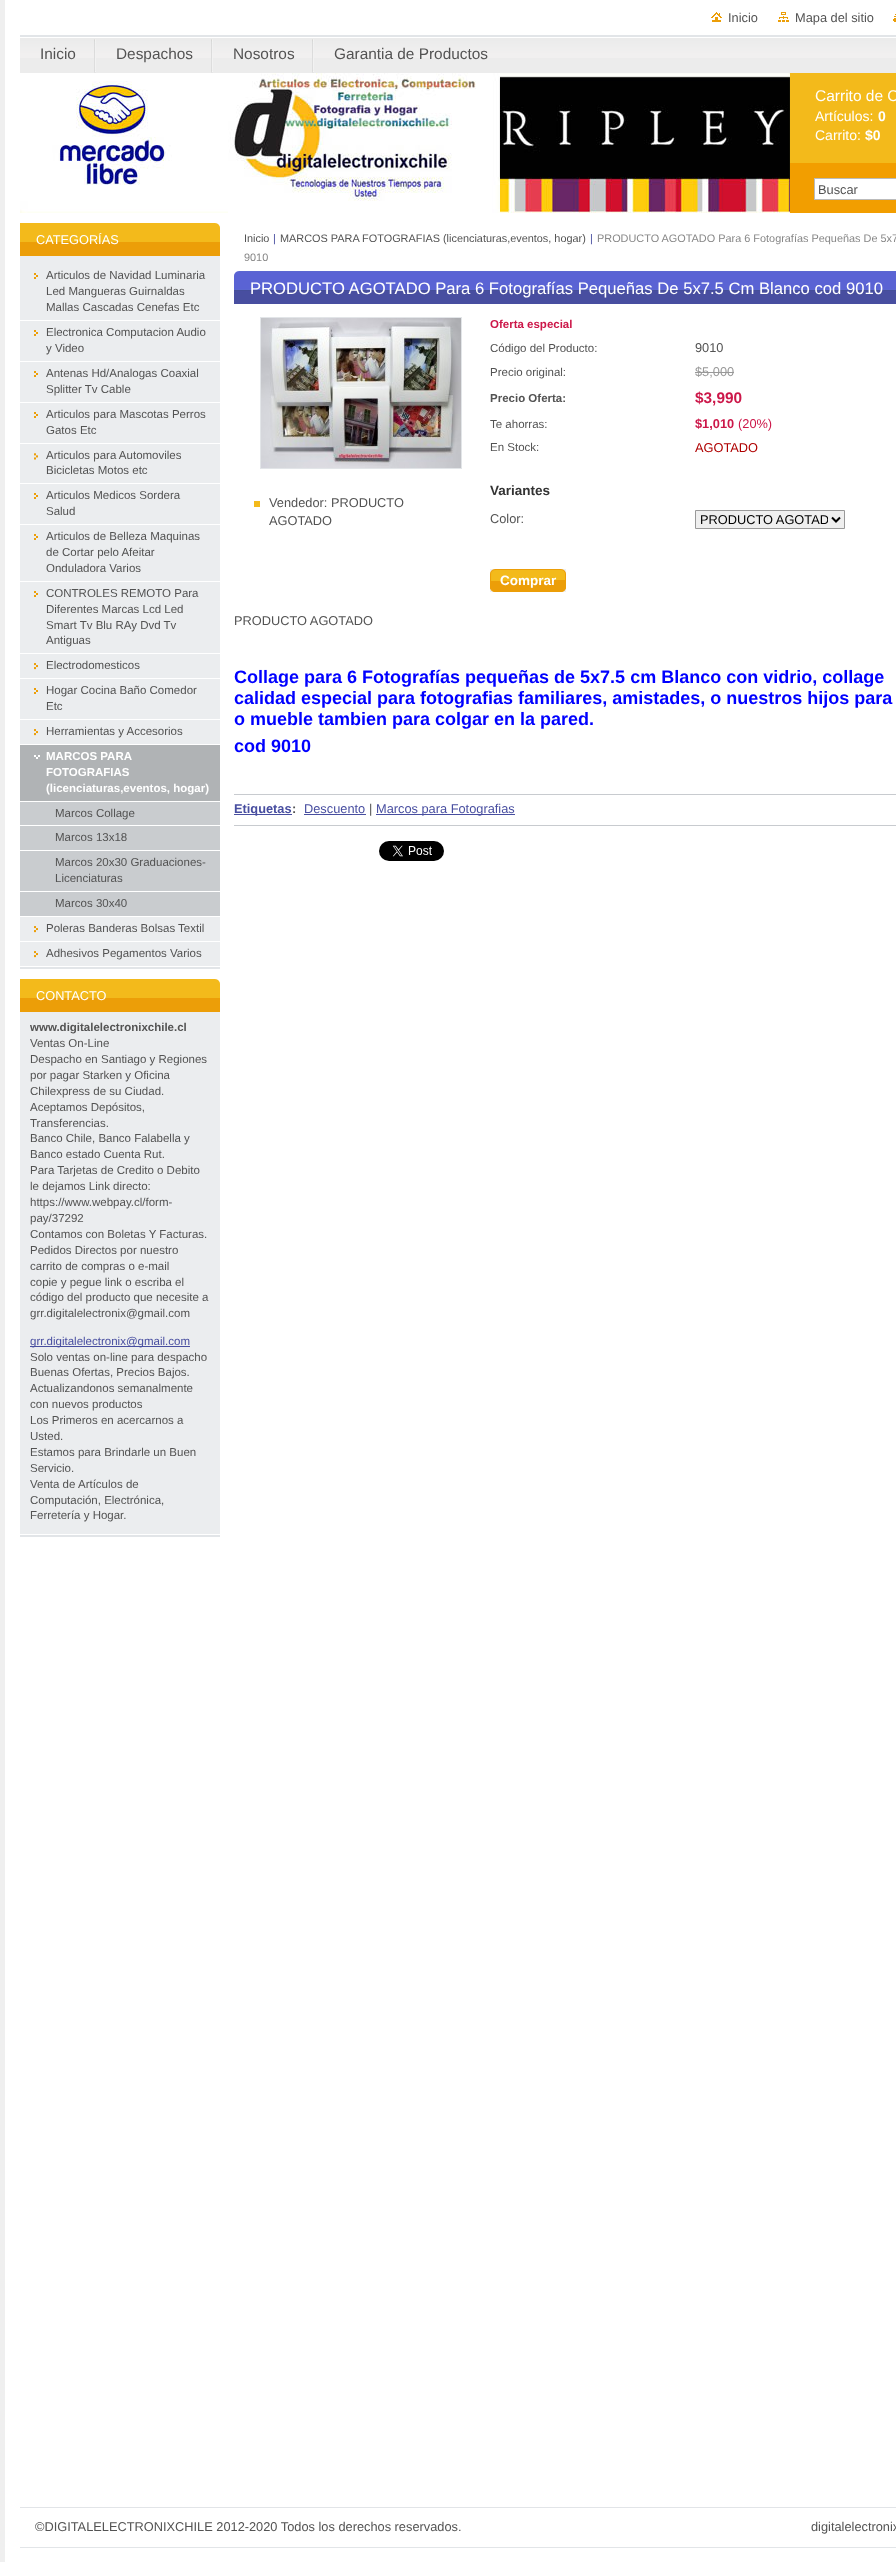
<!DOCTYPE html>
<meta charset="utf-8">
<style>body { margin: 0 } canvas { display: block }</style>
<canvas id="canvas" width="896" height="2562"></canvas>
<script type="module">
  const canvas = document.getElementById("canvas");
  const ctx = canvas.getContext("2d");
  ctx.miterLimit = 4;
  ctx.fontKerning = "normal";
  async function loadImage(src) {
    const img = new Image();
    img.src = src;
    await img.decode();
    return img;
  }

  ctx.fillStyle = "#ffffff";
  ctx.fillRect(0, 0, 896, 2562);
  ctx.fillStyle = "#efefef";
  ctx.fillRect(0, 0, 5, 2562);
  ctx.drawImage(await loadImage("img1.png"), 711, 12, 11, 10);
  ctx.font = "12.8px Liberation Sans";
  ctx.fillStyle = "#535353";
  ctx.fillText("Inicio", 728, 22);
  ctx.drawImage(await loadImage("img2.png"), 778, 12, 11, 10);
  ctx.fillText("Mapa del sitio", 795, 22);
  ctx.drawImage(await loadImage("img3.png"), 893, 14, 3, 8);
  ctx.fillStyle = "#ececec";
  ctx.fillRect(20, 58, 876, 15);
  ctx.drawImage(await loadImage("img4.png"), 20, 35, 876, 23);
  ctx.drawImage(await loadImage("img5.png"), 94, 39, 2, 34);
  ctx.font = "15.4px Liberation Sans";
  ctx.fillStyle = "#535353";
  ctx.fillText("Inicio", 40, 59);
  ctx.drawImage(await loadImage("img5.png"), 211, 39, 2, 34);
  ctx.fillText("Despachos", 116, 59);
  ctx.drawImage(await loadImage("img5.png"), 312, 39, 2, 34);
  ctx.fillText("Nosotros", 233, 59);
  ctx.fillText("Garantia de Productos", 334, 59);
  ctx.drawImage(await loadImage("img6.png"), 20, 73, 770, 140);
  ctx.fillStyle = "#f3ba1b";
  ctx.fillRect(790, 73, 106, 90);
  ctx.font = "15.5px Liberation Sans";
  ctx.fillStyle = "#ffffff";
  ctx.fillText("Carrito de C", 815, 101);
  ctx.font = "14px Liberation Sans";
  ctx.fillText("Artículos:", 815, 121);
  ctx.font = "bold 14px Liberation Sans";
  ctx.fillText("0", 878, 121);
  ctx.font = "14px Liberation Sans";
  ctx.fillText("Carrito:", 815, 140);
  ctx.font = "bold 14px Liberation Sans";
  ctx.fillText("$0", 865, 140);
  ctx.drawImage(await loadImage("img7.png"), 790, 163, 106, 50);
  ctx.font = "12.8px Liberation Sans";
  ctx.fillStyle = "#535353";
  ctx.fillText("Buscar", 818, 194);
  ctx.fillStyle = "#e2e5e8";
  ctx.fillRect(20, 967, 200, 2);
  ctx.fillStyle = "#ebedef";
  ctx.fillRect(20, 256, 200, 710);
  ctx.fillStyle = "#ec9e08";
  ctx.fillRect(20, 242, 200, 14);
  ctx.drawImage(await loadImage("img8.png"), 20, 223, 200, 19);
  ctx.font = "12.75px Liberation Sans";
  ctx.fillStyle = "#ffffff";
  ctx.fillText("CATEGORÍAS", 36, 244);
  ctx.drawImage(await loadImage("img9.png"), 34, 273, 4, 6);
  ctx.fillRect(20, 320, 200, 1);
  ctx.font = "11.5px Liberation Sans";
  ctx.fillStyle = "#535353";
  ctx.fillText("Articulos de Navidad Luminaria", 46, 279);
  ctx.fillText("Led Mangueras Guirnaldas", 46, 295);
  ctx.fillText("Mallas Cascadas Cenefas Etc", 46, 311);
  ctx.drawImage(await loadImage("img9.png"), 34, 330, 4, 6);
  ctx.fillStyle = "#ffffff";
  ctx.fillRect(20, 361, 200, 1);
  ctx.fillStyle = "#535353";
  ctx.fillText("Electronica Computacion Audio", 46, 336);
  ctx.fillText("y Video", 46, 352);
  ctx.drawImage(await loadImage("img9.png"), 34, 371, 4, 6);
  ctx.fillStyle = "#ffffff";
  ctx.fillRect(20, 402, 200, 1);
  ctx.fillStyle = "#535353";
  ctx.fillText("Antenas Hd/Analogas Coaxial", 46, 377);
  ctx.fillText("Splitter Tv Cable", 46, 393);
  ctx.drawImage(await loadImage("img9.png"), 34, 412, 4, 6);
  ctx.fillStyle = "#ffffff";
  ctx.fillRect(20, 443, 200, 1);
  ctx.fillStyle = "#535353";
  ctx.fillText("Articulos para Mascotas Perros", 46, 418);
  ctx.fillText("Gatos Etc", 46, 434);
  ctx.drawImage(await loadImage("img10.png"), 34, 453, 4, 7);
  ctx.fillStyle = "#ffffff";
  ctx.fillRect(20, 483, 200, 1);
  ctx.fillStyle = "#535353";
  ctx.fillText("Articulos para Automoviles", 46, 459);
  ctx.fillText("Bicicletas Motos etc", 46, 474);
  ctx.drawImage(await loadImage("img9.png"), 34, 493, 4, 6);
  ctx.fillStyle = "#ffffff";
  ctx.fillRect(20, 524, 200, 1);
  ctx.fillStyle = "#535353";
  ctx.fillText("Articulos Medicos Sordera", 46, 499);
  ctx.fillText("Salud", 46, 515);
  ctx.drawImage(await loadImage("img9.png"), 34, 534, 4, 6);
  ctx.fillStyle = "#ffffff";
  ctx.fillRect(20, 581, 200, 1);
  ctx.fillStyle = "#535353";
  ctx.fillText("Articulos de Belleza Maquinas", 46, 540);
  ctx.fillText("de Cortar pelo Afeitar", 46, 556);
  ctx.fillText("Onduladora Varios", 46, 572);
  ctx.drawImage(await loadImage("img9.png"), 34, 591, 4, 6);
  ctx.fillStyle = "#ffffff";
  ctx.fillRect(20, 653, 200, 1);
  ctx.fillStyle = "#535353";
  ctx.fillText("CONTROLES REMOTO Para", 46, 597);
  ctx.fillText("Diferentes Marcas Lcd Led", 46, 613);
  ctx.fillText("Smart Tv Blu RAy Dvd Tv", 46, 629);
  ctx.fillText("Antiguas", 46, 644);
  ctx.drawImage(await loadImage("img11.png"), 34, 663, 4, 7);
  ctx.fillStyle = "#ffffff";
  ctx.fillRect(20, 678, 200, 1);
  ctx.fillStyle = "#535353";
  ctx.fillText("Electrodomesticos", 46, 669);
  ctx.drawImage(await loadImage("img9.png"), 34, 688, 4, 6);
  ctx.fillStyle = "#ffffff";
  ctx.fillRect(20, 719, 200, 1);
  ctx.fillStyle = "#535353";
  ctx.fillText("Hogar Cocina Baño Comedor", 46, 694);
  ctx.fillText("Etc", 46, 710);
  ctx.drawImage(await loadImage("img11.png"), 34, 729, 4, 7);
  ctx.fillStyle = "#ffffff";
  ctx.fillRect(20, 744, 200, 1);
  ctx.fillStyle = "#535353";
  ctx.fillText("Herramientas y Accesorios", 46, 735);
  ctx.fillStyle = "#b0b3b5";
  ctx.fillRect(20, 745, 200, 56);
  ctx.drawImage(await loadImage("img12.png"), 34, 755, 6, 4);
  ctx.fillStyle = "#ffffff";
  ctx.fillRect(20, 801, 200, 1);
  ctx.font = "bold 11.5px Liberation Sans";
  ctx.fillText("MARCOS PARA", 46, 760);
  ctx.fillText("FOTOGRAFIAS", 46, 776);
  ctx.fillText("(licenciaturas,eventos, hogar)", 46, 792);
  ctx.fillStyle = "#c9cccf";
  ctx.fillRect(20, 802, 200, 114);
  ctx.fillStyle = "#ffffff";
  ctx.fillRect(20, 825, 200, 1);
  ctx.font = "11.5px Liberation Sans";
  ctx.fillStyle = "#535353";
  ctx.fillText("Marcos Collage", 55, 817);
  ctx.fillStyle = "#ffffff";
  ctx.fillRect(20, 850, 200, 1);
  ctx.fillStyle = "#535353";
  ctx.fillText("Marcos 13x18", 55, 841);
  ctx.fillStyle = "#ffffff";
  ctx.fillRect(20, 891, 200, 1);
  ctx.fillStyle = "#535353";
  ctx.fillText("Marcos 20x30 Graduaciones-", 55, 866);
  ctx.fillText("Licenciaturas", 55, 882);
  ctx.fillStyle = "#ffffff";
  ctx.fillRect(20, 916, 200, 1);
  ctx.fillStyle = "#535353";
  ctx.fillText("Marcos 30x40", 55, 907);
  ctx.drawImage(await loadImage("img11.png"), 34, 926, 4, 7);
  ctx.fillStyle = "#ffffff";
  ctx.fillRect(20, 941, 200, 1);
  ctx.fillStyle = "#535353";
  ctx.fillText("Poleras Banderas Bolsas Textil", 46, 932);
  ctx.drawImage(await loadImage("img11.png"), 34, 951, 4, 7);
  ctx.fillText("Adhesivos Pegamentos Varios", 46, 957);
  ctx.fillStyle = "#e2e5e8";
  ctx.fillRect(20, 1535, 200, 2);
  ctx.fillStyle = "#ebedef";
  ctx.fillRect(20, 1012, 200, 522);
  ctx.fillStyle = "#ec9e08";
  ctx.fillRect(20, 998, 200, 14);
  ctx.drawImage(await loadImage("img8.png"), 20, 979, 200, 19);
  ctx.font = "12.75px Liberation Sans";
  ctx.fillStyle = "#ffffff";
  ctx.fillText("CONTACTO", 36, 1000);
  ctx.font = "bold 11.5px Liberation Sans";
  ctx.fillStyle = "#535353";
  ctx.fillText("www.digitalelectronixchile.cl", 30, 1031);
  ctx.font = "11.5px Liberation Sans";
  ctx.fillText("Ventas On-Line", 30, 1047);
  ctx.fillText("Despacho en Santiago y Regiones", 30, 1063);
  ctx.fillText("por pagar Starken y Oficina", 30, 1079);
  ctx.fillText("Chilexpress de su Ciudad.", 30, 1095);
  ctx.fillText("Aceptamos Depósitos,", 30, 1111);
  ctx.fillText("Transferencias.", 30, 1127);
  ctx.fillText("Banco Chile, Banco Falabella y", 30, 1142);
  ctx.fillText("Banco estado Cuenta Rut.", 30, 1158);
  ctx.fillText("Para Tarjetas de Credito o Debito", 30, 1174);
  ctx.fillText("le dejamos Link directo:", 30, 1190);
  ctx.fillText("https://www.webpay.cl/form-", 30, 1206);
  ctx.fillText("pay/37292", 30, 1222);
  ctx.fillText("Contamos con Boletas Y Facturas.", 30, 1238);
  ctx.fillText("Pedidos Directos por nuestro", 30, 1254);
  ctx.fillText("carrito de compras o e-mail", 30, 1270);
  ctx.fillText("copie y pegue link o escriba el", 30, 1286);
  ctx.fillText("código del producto que necesite a", 30, 1301);
  ctx.fillText("grr.digitalelectronix@gmail.com", 30, 1317);
  ctx.fillStyle = "#484ea0";
  ctx.fillRect(30, 1346, 160, 1);
  ctx.fillText("grr.digitalelectronix@gmail.com", 30, 1345);
  ctx.fillStyle = "#535353";
  ctx.fillText("Solo ventas on-line para despacho", 30, 1361);
  ctx.fillText("Buenas Ofertas, Precios Bajos.", 30, 1376);
  ctx.fillText("Actualizandonos semanalmente", 30, 1392);
  ctx.fillText("con nuevos productos", 30, 1408);
  ctx.fillText("Los Primeros en acercarnos a", 30, 1424);
  ctx.fillText("Usted.", 30, 1440);
  ctx.fillText("Estamos para Brindarle un Buen", 30, 1456);
  ctx.fillText("Servicio.", 30, 1472);
  ctx.fillText("Venta de Artículos de", 30, 1488);
  ctx.fillText("Computación, Electrónica,", 30, 1504);
  ctx.fillText("Ferretería y Hogar.", 30, 1519);
  ctx.font = "10.9px Liberation Sans";
  ctx.fillText("Inicio", 244, 242);
  ctx.fillStyle = "#484ea0";
  ctx.fillText("|", 273, 242);
  ctx.fillStyle = "#535353";
  ctx.fillText("MARCOS PARA FOTOGRAFIAS (licenciaturas,eventos, hogar)", 280, 242);
  ctx.fillStyle = "#484ea0";
  ctx.fillText("|", 590, 242);
  ctx.fillStyle = "#878787";
  ctx.fillText("PRODUCTO AGOTADO Para 6 Fotografías Pequeñas De 5x7", 597, 242);
  ctx.fillText("9010", 244, 261);
  ctx.fillStyle = "#484ea0";
  ctx.fillRect(234, 291, 662, 13);
  ctx.drawImage(await loadImage("img13.png"), 234, 271, 662, 20);
  ctx.font = "16.65px Liberation Sans";
  ctx.fillStyle = "#ffffff";
  ctx.fillText("PRODUCTO AGOTADO Para 6 Fotografías Pequeñas De 5x7.5 Cm Blanco cod 9010", 250, 294);
  ctx.strokeStyle = "#e2e5e8";
  ctx.strokeRect(260.5, 317.5, 201, 151);
  ctx.drawImage(await loadImage("img14.png"), 261, 318, 200, 150);
  ctx.fillStyle = "#f3ba1b";
  ctx.fillRect(254, 501, 6, 6);
  ctx.font = "12.8px Liberation Sans";
  ctx.fillStyle = "#535353";
  ctx.fillText("Vendedor: PRODUCTO", 269, 507);
  ctx.fillText("AGOTADO", 269, 525);
  ctx.font = "bold 11.5px Liberation Sans";
  ctx.fillStyle = "#cc1749";
  ctx.fillText("Oferta especial", 490, 328);
  ctx.font = "11.5px Liberation Sans";
  ctx.fillStyle = "#535353";
  ctx.fillText("Código del Producto:", 490, 352);
  ctx.font = "12.8px Liberation Sans";
  ctx.fillText("9010", 695, 352);
  ctx.font = "11.5px Liberation Sans";
  ctx.fillText("Precio original:", 490, 376);
  ctx.font = "12.8px Liberation Sans";
  ctx.fillStyle = "#999999";
  ctx.fillText("$5,000", 695, 376);
  ctx.fillRect(695, 372, 39, 1);
  ctx.font = "bold 11.5px Liberation Sans";
  ctx.fillStyle = "#535353";
  ctx.fillText("Precio Oferta:", 490, 402);
  ctx.font = "bold 15.4px Liberation Sans";
  ctx.fillStyle = "#cc1749";
  ctx.fillText("$3,990", 695, 403);
  ctx.font = "11.5px Liberation Sans";
  ctx.fillStyle = "#535353";
  ctx.fillText("Te ahorras:", 490, 428);
  ctx.font = "bold 12.8px Liberation Sans";
  ctx.fillStyle = "#cc1749";
  ctx.fillText("$1,010", 695, 428);
  ctx.font = "12.8px Liberation Sans";
  ctx.fillText("(20%)", 738, 428);
  ctx.font = "11.5px Liberation Sans";
  ctx.fillStyle = "#535353";
  ctx.fillText("En Stock:", 490, 451);
  ctx.font = "12.8px Liberation Sans";
  ctx.fillStyle = "#af0000";
  ctx.fillText("AGOTADO", 695, 452);
  ctx.font = "bold 13.5px Liberation Sans";
  ctx.fillStyle = "#333333";
  ctx.fillText("Variantes", 490, 495);
  ctx.font = "12.8px Liberation Sans";
  ctx.fillStyle = "#535353";
  ctx.fillText("Color:", 490, 523);
  ctx.fillStyle = "#efefef";
  ctx.beginPath();
  ctx.rect(695.5, 510.5, 149, 18);
  ctx.fill();
  ctx.strokeStyle = "#999999";
  ctx.stroke();
  ctx.beginPath();
  ctx.moveTo(832, 517.5);
  ctx.lineTo(836, 521.5);
  ctx.lineTo(840, 517.5);
  ctx.strokeStyle = "#000000";
  ctx.lineWidth = 2;
  ctx.stroke();
  ctx.save();
  ctx.beginPath();
  ctx.rect(700, 511, 128, 17);
  ctx.clip();
  ctx.fillStyle = "#000000";
  ctx.fillText("PRODUCTO AGOTAD", 700, 524);
  ctx.restore();
  ctx.drawImage(await loadImage("img15.png"), 490, 569, 71, 12);
  ctx.drawImage(await loadImage("img16.png"), 561, 569, 5, 11);
  ctx.drawImage(await loadImage("img17.png"), 490, 581, 56, 11);
  ctx.drawImage(await loadImage("img18.png"), 546, 580, 20, 12);
  ctx.font = "bold 13.5px Liberation Sans";
  ctx.fillStyle = "#ffffff";
  ctx.fillText("Comprar", 500, 585);
  ctx.font = "12.8px Liberation Sans";
  ctx.fillStyle = "#535353";
  ctx.fillText("PRODUCTO AGOTADO", 234, 625);
  ctx.font = "bold 18px Liberation Sans";
  ctx.fillStyle = "#0000ff";
  ctx.fillText("Collage para 6 Fotografías pequeñas de 5x7.5 cm Blanco con vidrio, collage", 234, 683);
  ctx.fillText("calidad especial para fotografias familiares, amistades, o nuestros hijos para", 234, 704);
  ctx.fillText("o mueble tambien para colgar en la pared.", 234, 725);
  ctx.fillText("cod 9010", 234, 752);
  ctx.fillStyle = "#c8cbcf";
  ctx.fillRect(234, 794, 662, 1);
  ctx.fillRect(234, 825, 662, 1);
  ctx.fillStyle = "#484ea0";
  ctx.fillRect(234, 814, 58, 1);
  ctx.font = "bold 12.8px Liberation Sans";
  ctx.fillText("Etiquetas", 234, 813);
  ctx.fillStyle = "#535353";
  ctx.fillText(":", 292, 813);
  ctx.font = "12.8px Liberation Sans";
  ctx.fillStyle = "#484ea0";
  ctx.fillText("Descuento", 304, 813);
  ctx.fillRect(304, 814, 62, 1);
  ctx.fillStyle = "#535353";
  ctx.fillText("|", 369, 813);
  ctx.fillStyle = "#484ea0";
  ctx.fillRect(376, 814, 139, 1);
  ctx.fillText("Marcos para Fotografias", 376, 813);
  ctx.drawImage(await loadImage("img19.png"), 379, 841, 65, 20);
  ctx.fillStyle = "#e2e5e8";
  ctx.fillRect(20, 2507, 876, 1);
  ctx.fillRect(20, 2547, 876, 1);
  ctx.fillStyle = "#535353";
  ctx.fillText("©DIGITALELECTRONIXCHILE 2012-2020 Todos los derechos reservados.", 35, 2531);
  ctx.fillText("digitalelectronix", 811, 2531);
</script>
